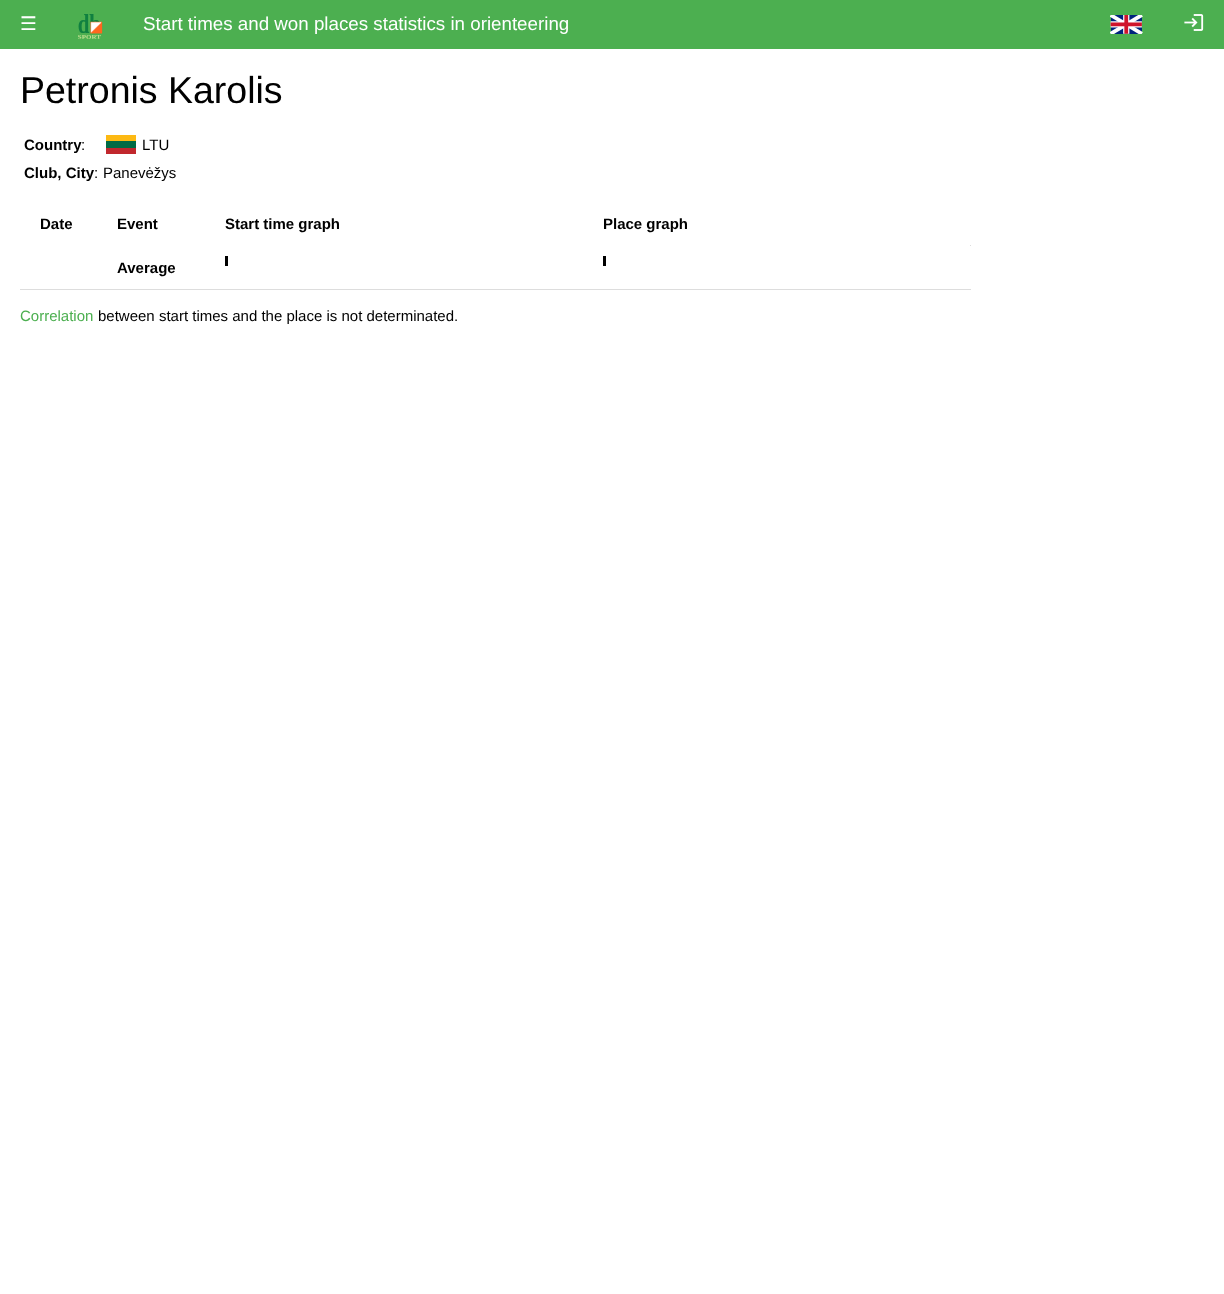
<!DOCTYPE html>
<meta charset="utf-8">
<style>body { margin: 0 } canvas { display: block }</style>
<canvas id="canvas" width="1224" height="1294"></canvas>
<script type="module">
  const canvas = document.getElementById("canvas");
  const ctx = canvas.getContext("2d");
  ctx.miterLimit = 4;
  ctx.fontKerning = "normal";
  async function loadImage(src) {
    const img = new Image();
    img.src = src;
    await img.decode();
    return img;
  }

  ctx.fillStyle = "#ffffff";
  ctx.fillRect(0, 0, 1224, 1294);
  ctx.fillStyle = "#4caf50";
  ctx.fillRect(123, 0, 1101, 49);
  ctx.fillRect(0, 0, 123, 49);
  ctx.font = "18.75px DejaVu Sans";
  ctx.fillStyle = "#ffffff";
  ctx.fillText("☰", 20, 30);
  ctx.drawImage(await loadImage("img1.png"), 78, 14, 25, 25);
  ctx.font = "18.75px Liberation Sans";
  ctx.fillText("Start times and won places statistics in orienteering", 143, 30);
  ctx.drawImage(await loadImage("img2.png"), 1110, 15, 33, 19);
  ctx.drawImage(await loadImage("img3.png"), 1184, 14, 20, 17);
  ctx.font = "37.5px Liberation Sans";
  ctx.fillStyle = "#000000";
  ctx.fillText("Petronis Karolis", 20, 103);
  ctx.font = "bold 15px Liberation Sans";
  ctx.fillText("Country", 24, 150);
  ctx.font = "15px Liberation Sans";
  ctx.fillText(":", 81, 150);
  ctx.fillStyle = "#fdb913";
  ctx.fillRect(106, 135, 30, 6);
  ctx.fillStyle = "#006a44";
  ctx.fillRect(106, 141, 30, 7);
  ctx.fillStyle = "#c1272d";
  ctx.fillRect(106, 148, 30, 6);
  ctx.fillStyle = "#000000";
  ctx.fillText("LTU", 142, 150);
  ctx.font = "bold 15px Liberation Sans";
  ctx.fillText("Club, City", 24, 178);
  ctx.font = "15px Liberation Sans";
  ctx.fillText(":", 94, 178);
  ctx.fillText("Panevėžys", 103, 178);
  ctx.fillStyle = "#dddddd";
  ctx.fillRect(970, 245, 1, 1);
  ctx.font = "bold 15px Liberation Sans";
  ctx.fillStyle = "#000000";
  ctx.fillText("Date", 40, 229);
  ctx.fillText("Event", 117, 229);
  ctx.fillText("Start time graph", 225, 229);
  ctx.fillText("Place graph", 603, 229);
  ctx.fillStyle = "#dddddd";
  ctx.fillRect(20, 289, 951, 1);
  ctx.fillStyle = "#000000";
  ctx.fillRect(225, 256, 3, 10);
  ctx.fillRect(603, 256, 3, 10);
  ctx.fillText("Average", 117, 273);
  ctx.font = "15px Liberation Sans";
  ctx.fillStyle = "#4caf50";
  ctx.fillText("Correlation", 20, 321);
  ctx.fillStyle = "#000000";
  ctx.fillText("between start times and the place is not determinated.", 98, 321);
</script>
